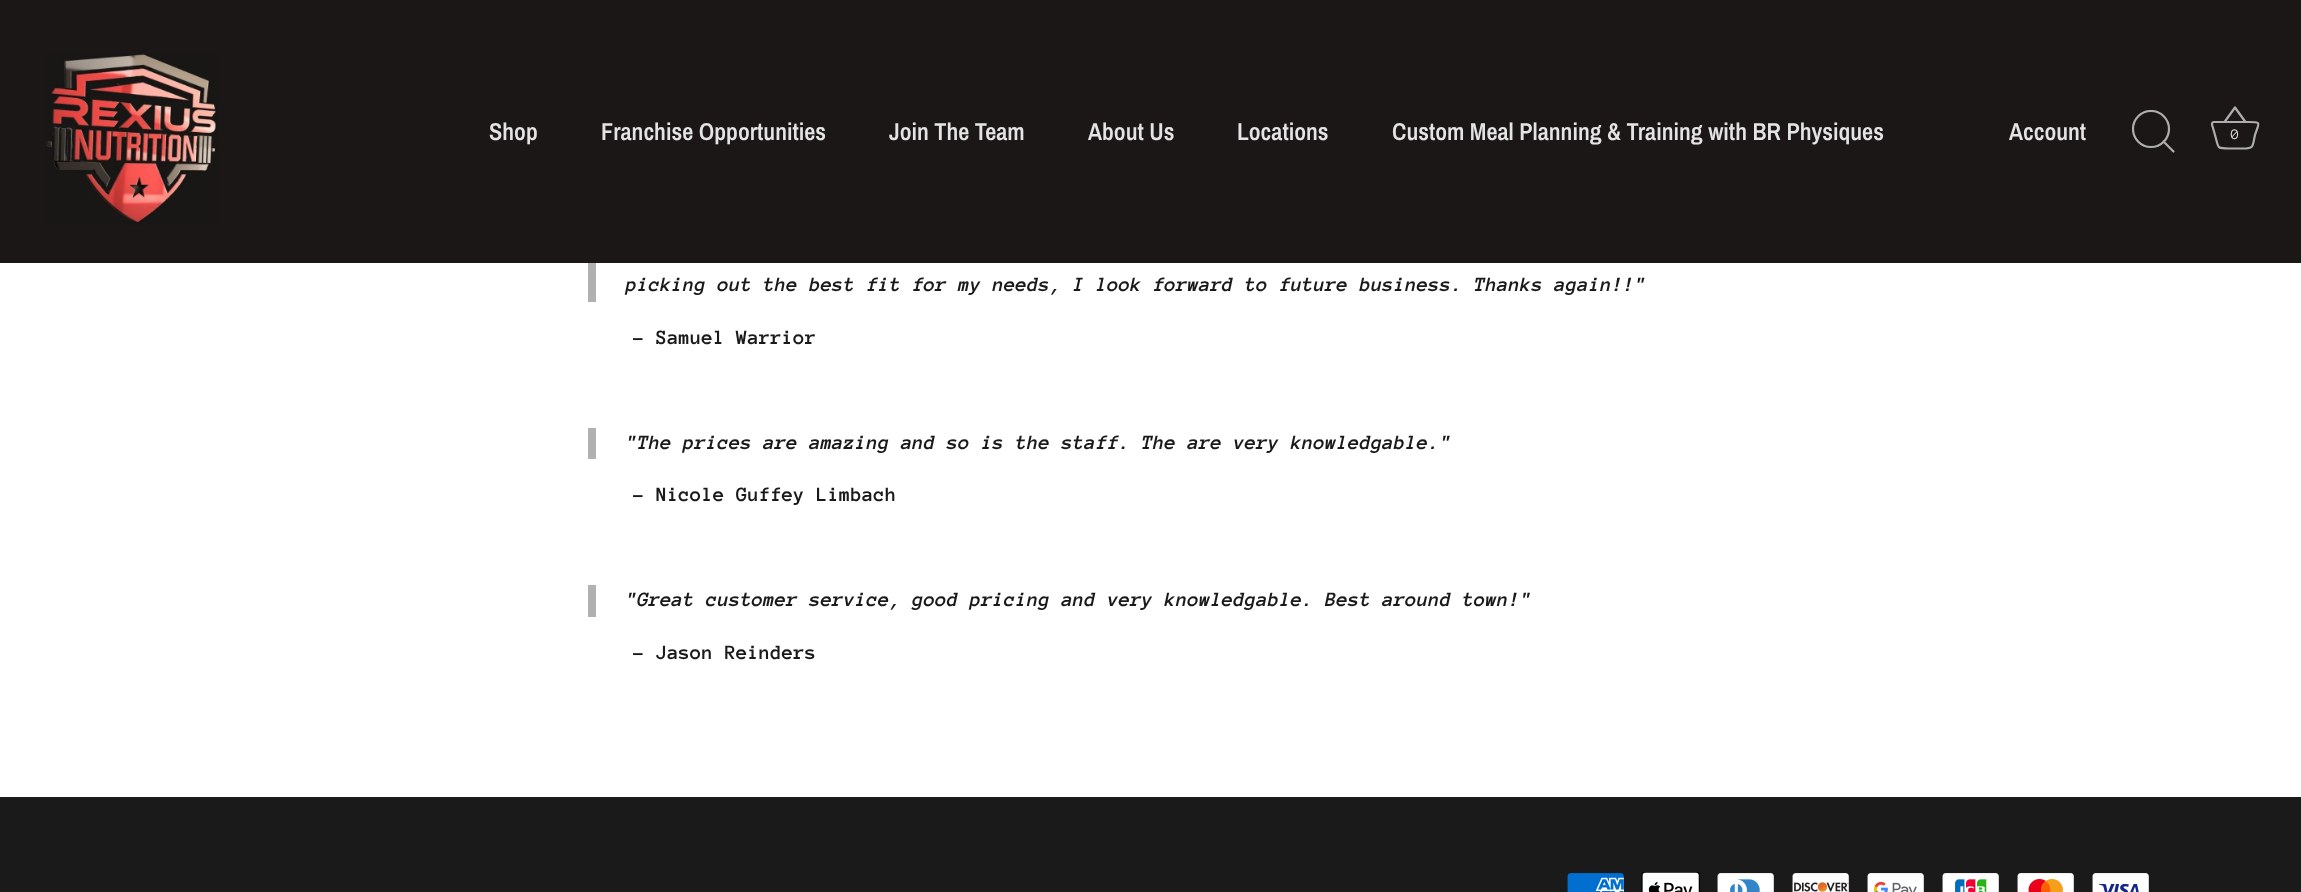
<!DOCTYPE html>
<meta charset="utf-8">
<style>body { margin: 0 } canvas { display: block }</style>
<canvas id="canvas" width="2301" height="892"></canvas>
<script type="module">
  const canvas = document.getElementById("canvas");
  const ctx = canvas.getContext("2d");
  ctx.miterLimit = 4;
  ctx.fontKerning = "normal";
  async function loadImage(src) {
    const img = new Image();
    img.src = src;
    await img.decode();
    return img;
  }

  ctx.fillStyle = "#ffffff";
  ctx.fillRect(0, 0, 2301, 892);
  ctx.fillStyle = "#1b1717";
  ctx.fillRect(0, 0, 2301, 263);
  ctx.drawImage(await loadImage("img1.png"), 46, 53, 173, 172);
  ctx.font = "600 24.3px Archivo Narrow";
  ctx.fillStyle = "#e4e4e4";
  ctx.fillText("Shop", 489, 140);
  ctx.fillText("Franchise Opportunities", 601, 140);
  ctx.fillText("Join The Team", 889, 140);
  ctx.fillText("About Us", 1088, 140);
  ctx.fillText("Locations", 1237, 140);
  ctx.fillText("Custom Meal Planning & Training with BR Physiques", 1392, 140);
  ctx.fillText("Account", 2009, 140);
  ctx.save();
  ctx.beginPath();
  ctx.rect(2132, 110, 43, 43);
  ctx.clip();
  ctx.beginPath();
  ctx.arc(2151, 129, 18, 0, Math.PI * 2);
  ctx.strokeStyle = "#adadad";
  ctx.lineWidth = 2.2;
  ctx.stroke();
  ctx.restore();
  ctx.beginPath();
  ctx.moveTo(2173.5, 151.5);
  ctx.lineTo(2163.5, 141.5);
  ctx.strokeStyle = "#adadad";
  ctx.lineWidth = 2.2;
  ctx.lineCap = "round";
  ctx.lineJoin = "round";
  ctx.stroke();
  ctx.beginPath();
  ctx.moveTo(2214, 122);
  ctx.bezierCurveTo(2210.5, 122, 2212.5, 126.5, 2213, 128);
  ctx.lineTo(2215, 135);
  ctx.bezierCurveTo(2219, 149, 2216, 148.5, 2230.5, 148.5);
  ctx.lineTo(2243.5, 148.5);
  ctx.bezierCurveTo(2254.5, 148.5, 2252.5, 145.5, 2255, 135);
  ctx.bezierCurveTo(2259, 122.5, 2262, 122, 2249, 122);
  ctx.lineTo(2214, 122);
  ctx.moveTo(2224.5, 122);
  ctx.lineTo(2235, 107.5);
  ctx.lineTo(2245.5, 122);
  ctx.lineCap = "butt";
  ctx.stroke();
  ctx.font = "15px Anonymous Pro";
  ctx.fillText("0", 2231, 139);
  ctx.fillStyle = "#b1b1b1";
  ctx.fillRect(588, 263, 8, 39);
  ctx.font = "italic bold 21px Anonymous Pro";
  ctx.fillStyle = "#1a1a1a";
  ctx.fillText("picking out the best fit for my needs, I look forward to future business. Thanks again!!\"", 626, 291);
  ctx.font = "bold 21px Anonymous Pro";
  ctx.fillText("- Samuel Warrior", 633, 344);
  ctx.fillStyle = "#b1b1b1";
  ctx.fillRect(588, 428, 8, 31);
  ctx.font = "italic bold 21px Anonymous Pro";
  ctx.fillStyle = "#1a1a1a";
  ctx.fillText("\"The prices are amazing and so is the staff. The are very knowledgable.\"", 626, 449);
  ctx.font = "bold 21px Anonymous Pro";
  ctx.fillText("- Nicole Guffey Limbach", 633, 501);
  ctx.fillStyle = "#b1b1b1";
  ctx.fillRect(588, 585, 8, 32);
  ctx.font = "italic bold 21px Anonymous Pro";
  ctx.fillStyle = "#1a1a1a";
  ctx.fillText("\"Great customer service, good pricing and very knowledgable. Best around town!\"", 626, 606);
  ctx.font = "bold 21px Anonymous Pro";
  ctx.fillText("- Jason Reinders", 633, 659);
  ctx.fillRect(0, 797, 2301, 95);
  ctx.drawImage(await loadImage("img2.png"), 1567, 873, 57, 19);
  ctx.drawImage(await loadImage("img3.png"), 1641, 872, 59, 20);
  ctx.drawImage(await loadImage("img4.png"), 1717, 873, 57, 19);
  ctx.drawImage(await loadImage("img5.png"), 1792, 873, 57, 19);
  ctx.drawImage(await loadImage("img6.png"), 1867, 873, 57, 19);
  ctx.drawImage(await loadImage("img7.png"), 1942, 873, 57, 19);
  ctx.drawImage(await loadImage("img8.png"), 2017, 873, 57, 19);
  ctx.drawImage(await loadImage("img9.png"), 2092, 873, 57, 19);
</script>
